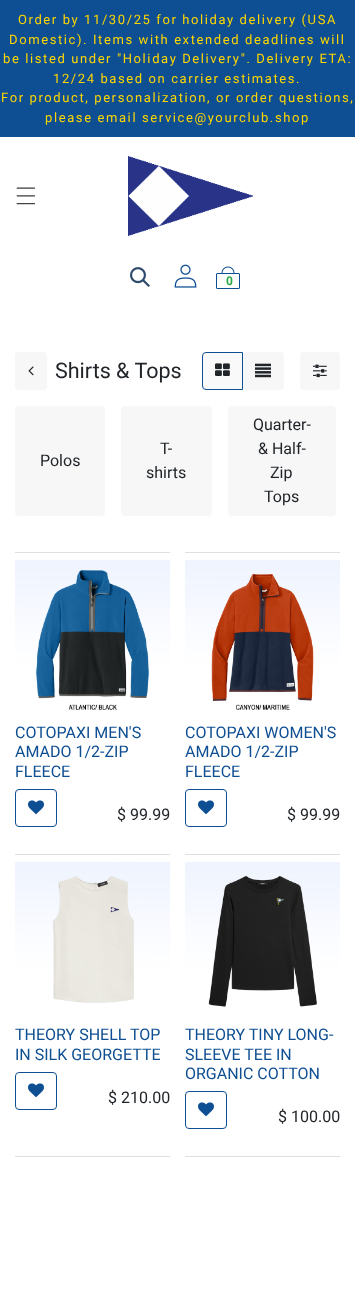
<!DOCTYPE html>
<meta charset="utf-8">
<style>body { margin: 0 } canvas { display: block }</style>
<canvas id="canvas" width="355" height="1306"></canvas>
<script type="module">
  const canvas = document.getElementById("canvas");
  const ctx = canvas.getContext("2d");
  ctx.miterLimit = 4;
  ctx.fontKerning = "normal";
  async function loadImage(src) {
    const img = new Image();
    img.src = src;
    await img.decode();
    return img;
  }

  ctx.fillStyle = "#ffffff";
  ctx.fillRect(0, 0, 355, 1306);
  ctx.fillStyle = "#0e4e92";
  ctx.fillRect(0, 0, 355, 137);
  ctx.letterSpacing = "1.6px";
  ctx.font = "13px Roboto";
  ctx.fillStyle = "#ffd700";
  ctx.fillText("Order by 11/30/25 for holiday delivery (USA", 18, 24);
  ctx.fillText("Domestic). Items with extended deadlines will", 9, 44);
  ctx.fillText("be listed under \"Holiday Delivery\". Delivery ETA:", 3, 63);
  ctx.fillText("12/24 based on carrier estimates.", 53, 83);
  ctx.fillText("For product, personalization, or order questions,", 1, 102);
  ctx.fillText("please email service@yourclub.shop", 45, 122);
  ctx.drawImage(await loadImage("img1.png"), 16, 187, 20, 18);
  ctx.drawImage(await loadImage("img2.png"), 128, 156, 126, 80);
  ctx.drawImage(await loadImage("img3.png"), 130, 267, 20, 20);
  ctx.drawImage(await loadImage("img4.png"), 174, 264, 23, 24);
  ctx.drawImage(await loadImage("img5.png"), 216, 266, 24, 23);
  ctx.letterSpacing = "0px";
  ctx.font = "bold 12px Roboto";
  ctx.fillStyle = "#28a745";
  ctx.fillText("0", 226, 285);
  ctx.fillStyle = "#f7f7f8";
  ctx.beginPath();
  ctx.roundRect(15, 352, 32, 38, 4);
  ctx.fill();
  ctx.drawImage(await loadImage("img6.png"), 28, 366, 6, 10);
  ctx.font = "21.5px Roboto";
  ctx.fillStyle = "#212529";
  ctx.fillText("Shirts & Tops", 55, 378);
  ctx.fillStyle = "#f7f7f8";
  ctx.beginPath();
  ctx.roundRect(242, 352, 42, 38, [0, 4, 4, 0]);
  ctx.fill();
  ctx.fillStyle = "#f9f9f9";
  ctx.beginPath();
  ctx.roundRect(202.5, 352.5, 40, 37, [3.5, 0, 0, 3.5]);
  ctx.fill();
  ctx.strokeStyle = "#0e4e92";
  ctx.stroke();
  ctx.drawImage(await loadImage("img7.png"), 215, 363, 15, 13);
  ctx.drawImage(await loadImage("img8.png"), 255, 363, 16, 15);
  ctx.fillStyle = "#f7f7f8";
  ctx.beginPath();
  ctx.roundRect(300, 352, 40, 38, 4);
  ctx.fill();
  ctx.drawImage(await loadImage("img9.png"), 313, 364, 14, 14);
  ctx.beginPath();
  ctx.roundRect(15, 406, 90, 110, 4);
  ctx.fill();
  ctx.font = "16px Roboto";
  ctx.fillStyle = "#212529";
  ctx.fillText("Polos", 40, 466);
  ctx.fillStyle = "#f7f7f8";
  ctx.beginPath();
  ctx.roundRect(121, 406, 91, 110, 4);
  ctx.fill();
  ctx.fillStyle = "#212529";
  ctx.fillText("T-", 160, 454);
  ctx.fillText("shirts", 146, 478);
  ctx.fillStyle = "#f7f7f8";
  ctx.beginPath();
  ctx.roundRect(228, 406, 108, 110, 4);
  ctx.fill();
  ctx.fillStyle = "#212529";
  ctx.fillText("Quarter-", 253, 430);
  ctx.fillText("& Half-", 258, 454);
  ctx.fillText("Zip", 270, 478);
  ctx.fillText("Tops", 264, 502);
  ctx.fillStyle = "#dfdfdf";
  ctx.fillRect(15, 552, 155, 1);
  ctx.drawImage(await loadImage("img10.png"), 15, 560, 155, 150);
  ctx.fillStyle = "#0e4e92";
  ctx.fillText("COTOPAXI MEN'S", 15, 738);
  ctx.fillText("AMADO 1/2-ZIP", 15, 757);
  ctx.fillText("FLEECE", 15, 777);
  ctx.beginPath();
  ctx.roundRect(15.5, 789.5, 41, 37, 3.5);
  ctx.stroke();
  ctx.drawImage(await loadImage("img11.png"), 28, 800, 16, 15);
  ctx.fillStyle = "#212529";
  ctx.fillText("$ 99.99", 117, 820);
  ctx.fillStyle = "#dfdfdf";
  ctx.fillRect(185, 552, 155, 1);
  ctx.drawImage(await loadImage("img12.png"), 185, 560, 155, 150);
  ctx.fillStyle = "#0e4e92";
  ctx.fillText("COTOPAXI WOMEN'S", 185, 738);
  ctx.fillText("AMADO 1/2-ZIP", 185, 757);
  ctx.fillText("FLEECE", 185, 777);
  ctx.beginPath();
  ctx.roundRect(185.5, 789.5, 41, 37, 3.5);
  ctx.stroke();
  ctx.drawImage(await loadImage("img11.png"), 198, 800, 16, 15);
  ctx.fillStyle = "#212529";
  ctx.fillText("$ 99.99", 287, 820);
  ctx.fillStyle = "#dfdfdf";
  ctx.fillRect(15, 854, 155, 1);
  ctx.drawImage(await loadImage("img13.png"), 15, 862, 155, 141);
  ctx.fillStyle = "#0e4e92";
  ctx.fillText("THEORY SHELL TOP", 15, 1040);
  ctx.fillText("IN SILK GEORGETTE", 15, 1060);
  ctx.beginPath();
  ctx.roundRect(15.5, 1072.5, 41, 37, 3.5);
  ctx.stroke();
  ctx.drawImage(await loadImage("img11.png"), 28, 1083, 16, 15);
  ctx.fillStyle = "#212529";
  ctx.fillText("$ 210.00", 108, 1103);
  ctx.fillStyle = "#dfdfdf";
  ctx.fillRect(185, 854, 155, 1);
  ctx.drawImage(await loadImage("img14.png"), 185, 862, 155, 145);
  ctx.fillStyle = "#0e4e92";
  ctx.fillText("THEORY TINY LONG-", 185, 1040);
  ctx.fillText("SLEEVE TEE IN", 185, 1060);
  ctx.fillText("ORGANIC COTTON", 185, 1079);
  ctx.beginPath();
  ctx.roundRect(185.5, 1091.5, 41, 37, 3.5);
  ctx.stroke();
  ctx.drawImage(await loadImage("img11.png"), 198, 1102, 16, 15);
  ctx.fillStyle = "#212529";
  ctx.fillText("$ 100.00", 278, 1122);
  ctx.fillStyle = "#dfdfdf";
  ctx.fillRect(15, 1156, 155, 1);
  ctx.fillRect(185, 1156, 155, 1);
</script>
